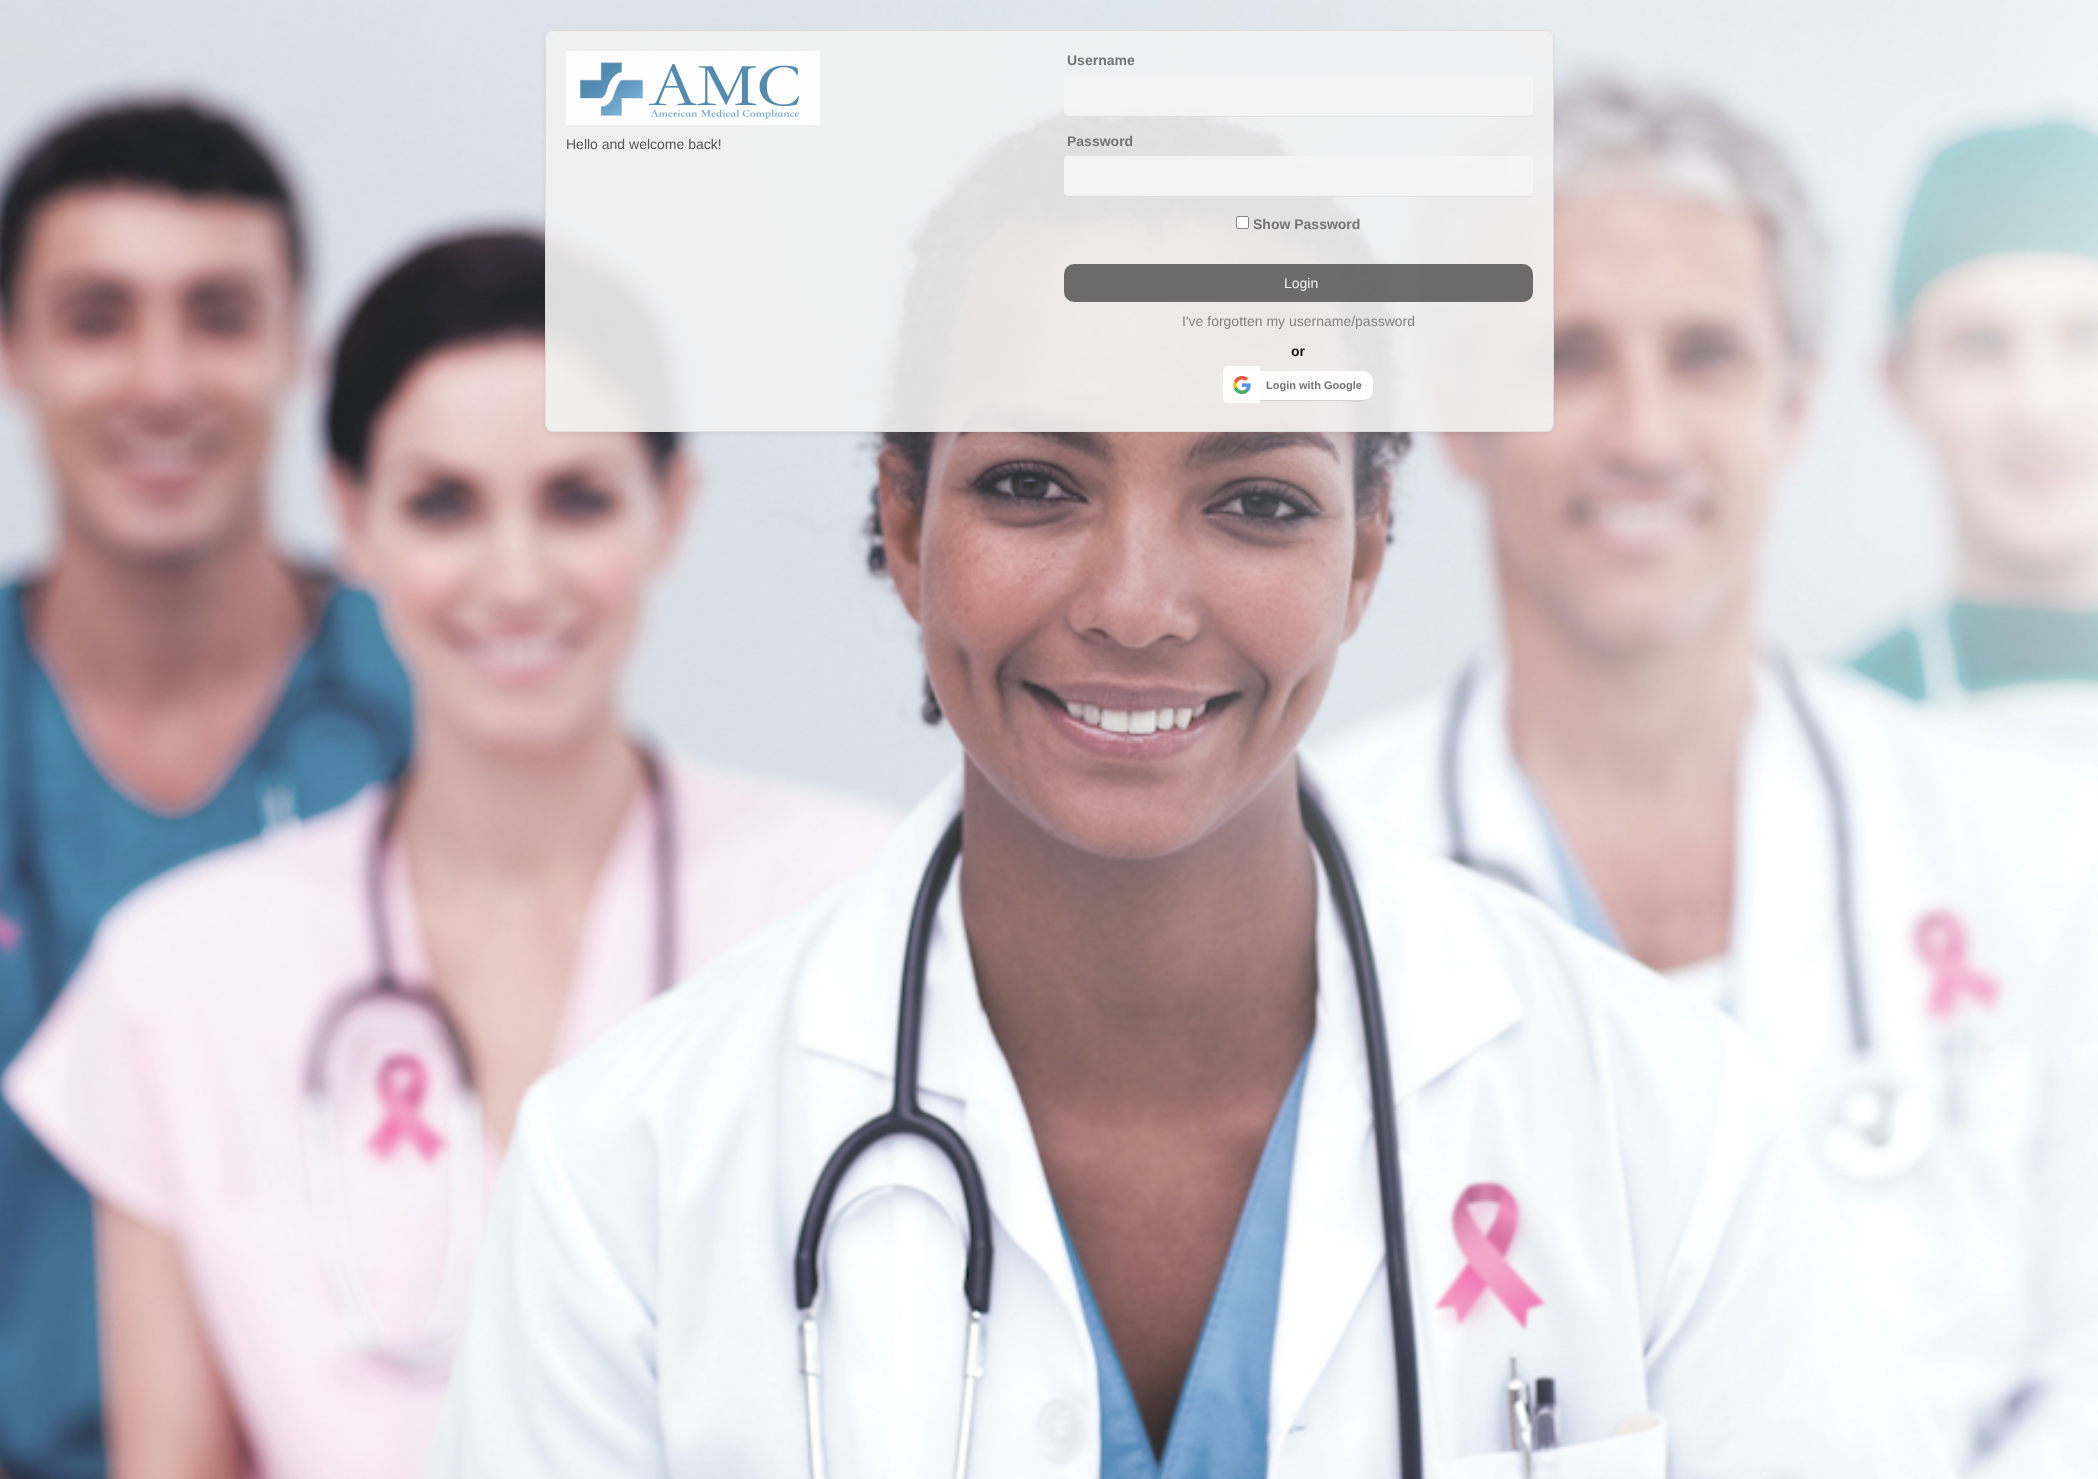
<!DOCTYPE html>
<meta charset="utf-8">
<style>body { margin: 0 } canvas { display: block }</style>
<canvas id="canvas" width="2098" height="1479"></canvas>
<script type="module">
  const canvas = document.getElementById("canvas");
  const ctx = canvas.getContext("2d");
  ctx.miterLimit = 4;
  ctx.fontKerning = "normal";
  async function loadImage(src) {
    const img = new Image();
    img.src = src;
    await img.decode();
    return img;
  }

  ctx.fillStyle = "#ffffff";
  ctx.fillRect(0, 0, 2098, 1479);
  ctx.drawImage(await loadImage("img1.png"), 0, 0, 2098, 1479);
  ctx.save();
  ctx.beginPath();
  ctx.moveTo(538, 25);
  ctx.lineTo(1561, 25);
  ctx.lineTo(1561, 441);
  ctx.lineTo(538, 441);
  ctx.closePath();
  ctx.moveTo(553, 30);
  ctx.lineTo(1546, 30);
  ctx.bezierCurveTo(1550.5, 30, 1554, 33.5, 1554, 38);
  ctx.lineTo(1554, 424);
  ctx.bezierCurveTo(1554, 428.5, 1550.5, 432, 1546, 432);
  ctx.lineTo(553, 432);
  ctx.bezierCurveTo(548.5, 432, 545, 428.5, 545, 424);
  ctx.lineTo(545, 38);
  ctx.bezierCurveTo(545, 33.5, 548.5, 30, 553, 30);
  ctx.closePath();
  ctx.clip("evenodd");
  ctx.fillStyle = "rgba(0, 0, 0, 0.06)";
  ctx.filter = "blur(2px)";
  ctx.beginPath();
  ctx.roundRect(545, 32, 1009, 402, 8);
  ctx.fill();
  ctx.filter = "none";
  ctx.restore();
  ctx.fillStyle = "rgba(242, 242, 242, 0.9)";
  ctx.beginPath();
  ctx.roundRect(545, 30, 1009, 402, 8);
  ctx.fill();
  ctx.beginPath();
  ctx.roundRect(545.5, 30.5, 1008, 401, 7.5);
  ctx.strokeStyle = "rgba(220, 220, 220, 0.9)";
  ctx.stroke();
  ctx.drawImage(await loadImage("img2.png"), 566, 51, 254, 74);
  ctx.font = "14px Liberation Sans";
  ctx.fillStyle = "#555555";
  ctx.fillText("Hello and welcome back!", 566, 149);
  ctx.font = "bold 14px Liberation Sans";
  ctx.fillStyle = "#747474";
  ctx.fillText("Username", 1067, 65);
  ctx.fillStyle = "rgba(245, 245, 245, 0.9)";
  ctx.beginPath();
  ctx.roundRect(1064, 76, 469, 41, 4);
  ctx.fill();
  ctx.fillStyle = "rgba(0, 0, 0, 0.09)";
  ctx.beginPath();
  ctx.moveTo(1064, 112);
  ctx.bezierCurveTo(1064, 115, 1065, 117, 1068, 117);
  ctx.lineTo(1529, 117);
  ctx.bezierCurveTo(1532, 117, 1533, 115, 1533, 112);
  ctx.bezierCurveTo(1533, 114, 1531, 116, 1529, 116);
  ctx.lineTo(1068, 116);
  ctx.bezierCurveTo(1066, 116, 1064, 114, 1064, 112);
  ctx.closePath();
  ctx.fill();
  ctx.fillStyle = "#747474";
  ctx.fillText("Password", 1067, 146);
  ctx.fillStyle = "rgba(245, 245, 245, 0.9)";
  ctx.beginPath();
  ctx.roundRect(1064, 156, 469, 41, 4);
  ctx.fill();
  ctx.fillStyle = "rgba(0, 0, 0, 0.09)";
  ctx.beginPath();
  ctx.moveTo(1064, 192);
  ctx.bezierCurveTo(1064, 195, 1065, 197, 1068, 197);
  ctx.lineTo(1529, 197);
  ctx.bezierCurveTo(1532, 197, 1533, 195, 1533, 192);
  ctx.bezierCurveTo(1533, 194, 1531, 196, 1529, 196);
  ctx.lineTo(1068, 196);
  ctx.bezierCurveTo(1066, 196, 1064, 194, 1064, 192);
  ctx.closePath();
  ctx.fill();
  ctx.fillStyle = "rgba(255, 255, 255, 0.9)";
  ctx.beginPath();
  ctx.roundRect(1236, 216, 13, 13, 2);
  ctx.fill();
  ctx.beginPath();
  ctx.roundRect(1236.5, 216.5, 12, 12, 1.5);
  ctx.strokeStyle = "rgba(118, 118, 118, 0.9)";
  ctx.stroke();
  ctx.fillStyle = "#747474";
  ctx.fillText("Show Password", 1253, 229);
  ctx.fillStyle = "rgba(93, 93, 93, 0.9)";
  ctx.beginPath();
  ctx.roundRect(1064, 264, 469, 38, 10);
  ctx.fill();
  ctx.font = "14px Liberation Sans";
  ctx.fillStyle = "#f0f0f0";
  ctx.fillText("Login", 1284, 288);
  ctx.fillStyle = "#838282";
  ctx.fillText("I've forgotten my username/password", 1182, 326);
  ctx.font = "bold 14px Liberation Sans";
  ctx.fillStyle = "#191818";
  ctx.fillText("or", 1291, 356);
  ctx.fillStyle = "rgba(255, 255, 255, 0.9)";
  ctx.beginPath();
  ctx.roundRect(1223, 371, 150, 30, 10);
  ctx.fill();
  ctx.fillStyle = "rgba(204, 204, 204, 0.9)";
  ctx.beginPath();
  ctx.moveTo(1223, 390);
  ctx.bezierCurveTo(1223, 406, 1245, 401, 1255, 401);
  ctx.lineTo(1341, 401);
  ctx.bezierCurveTo(1351, 401, 1373, 406, 1373, 390);
  ctx.bezierCurveTo(1373, 396, 1369, 400, 1363, 400);
  ctx.lineTo(1233, 400);
  ctx.bezierCurveTo(1227, 400, 1223, 396, 1223, 390);
  ctx.closePath();
  ctx.fill();
  ctx.fillStyle = "rgba(255, 255, 255, 0.9)";
  ctx.beginPath();
  ctx.roundRect(1223, 366, 37, 37, [5, 0, 0, 5]);
  ctx.fill();
  ctx.drawImage(await loadImage("img3.png"), 1233, 376, 18, 18);
  ctx.font = "bold 11px Liberation Sans";
  ctx.fillStyle = "#747474";
  ctx.fillText("Login with Google", 1266, 389);
</script>
